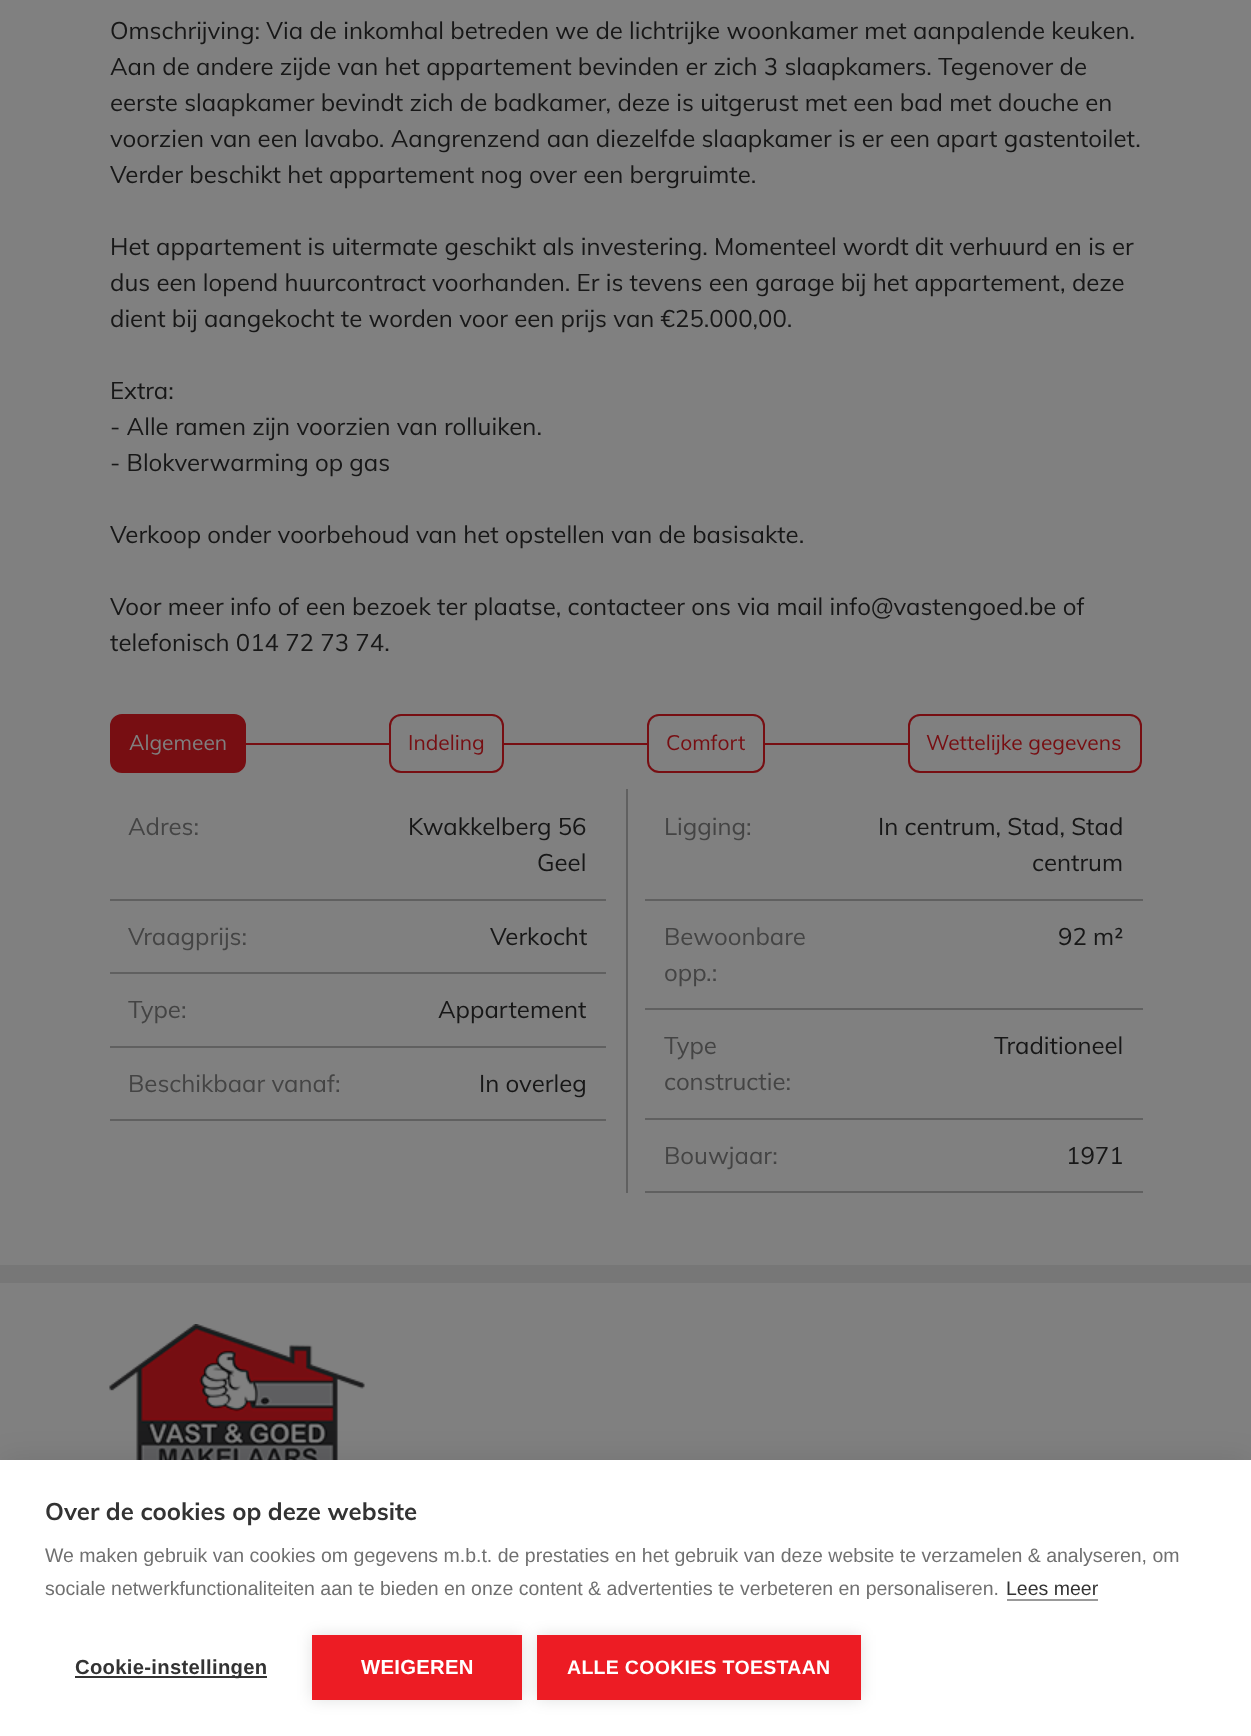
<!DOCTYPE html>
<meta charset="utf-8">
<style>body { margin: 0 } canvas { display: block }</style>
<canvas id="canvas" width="1251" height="1736"></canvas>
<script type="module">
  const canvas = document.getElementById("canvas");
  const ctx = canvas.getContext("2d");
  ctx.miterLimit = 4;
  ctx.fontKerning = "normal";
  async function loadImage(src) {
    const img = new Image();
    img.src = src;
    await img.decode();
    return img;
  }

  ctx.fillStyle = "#808080";
  ctx.fillRect(0, 0, 1251, 1736);
  ctx.font = "24px Muli";
  ctx.fillStyle = "#171717";
  ctx.fillText("Omschrijving: Via de inkomhal betreden we de lichtrijke woonkamer met aanpalende keuken.", 110, 39);
  ctx.fillText("Aan de andere zijde van het appartement bevinden er zich 3 slaapkamers. Tegenover de", 110, 75);
  ctx.fillText("eerste slaapkamer bevindt zich de badkamer, deze is uitgerust met een bad met douche en", 110, 111);
  ctx.fillText("voorzien van een lavabo. Aangrenzend aan diezelfde slaapkamer is er een apart gastentoilet.", 110, 147);
  ctx.fillText("Verder beschikt het appartement nog over een bergruimte.", 110, 183);
  ctx.fillText("Het appartement is uitermate geschikt als investering. Momenteel wordt dit verhuurd en is er", 110, 255);
  ctx.fillText("dus een lopend huurcontract voorhanden. Er is tevens een garage bij het appartement, deze", 110, 291);
  ctx.fillText("dient bij aangekocht te worden voor een prijs van €25.000,00.", 110, 327);
  ctx.fillText("Extra:", 110, 399);
  ctx.fillText("- Alle ramen zijn voorzien van rolluiken.", 110, 435);
  ctx.fillText("- Blokverwarming op gas", 110, 471);
  ctx.fillText("Verkoop onder voorbehoud van het opstellen van de basisakte.", 110, 543);
  ctx.fillText("Voor meer info of een bezoek ter plaatse, contacteer ons via mail info@vastengoed.be of", 110, 615);
  ctx.fillText("telefonisch 014 72 73 74.", 110, 651);
  ctx.fillStyle = "#770e12";
  ctx.beginPath();
  ctx.roundRect(111, 715, 134, 57, 11);
  ctx.fill();
  ctx.strokeStyle = "#770e12";
  ctx.lineWidth = 2;
  ctx.stroke();
  ctx.font = "21px Muli";
  ctx.fillStyle = "#808080";
  ctx.fillText("Algemeen", 129, 750);
  ctx.fillStyle = "#770e12";
  ctx.fillRect(246, 743, 662, 2);
  ctx.fillStyle = "#808080";
  ctx.beginPath();
  ctx.roundRect(390, 715, 113, 57, 11);
  ctx.fill();
  ctx.stroke();
  ctx.fillStyle = "#770e12";
  ctx.fillText("Indeling", 408, 750);
  ctx.fillStyle = "#808080";
  ctx.beginPath();
  ctx.roundRect(648, 715, 116, 57, 11);
  ctx.fill();
  ctx.stroke();
  ctx.fillStyle = "#770e12";
  ctx.fillText("Comfort", 666, 750);
  ctx.beginPath();
  ctx.roundRect(909, 715, 232, 57, 11);
  ctx.stroke();
  ctx.fillText("Wettelijke gegevens", 926, 750);
  ctx.fillStyle = "#606060";
  ctx.fillRect(626, 789, 2, 404);
  ctx.font = "24px Muli";
  ctx.fillStyle = "#444444";
  ctx.fillText("Adres:", 128, 835);
  ctx.fillStyle = "#606060";
  ctx.fillRect(110, 899, 496, 2);
  ctx.fillStyle = "#171717";
  ctx.fillText("Kwakkelberg 56", 408, 835);
  ctx.fillText("Geel", 537, 871);
  ctx.fillStyle = "#444444";
  ctx.fillText("Vraagprijs:", 128, 945);
  ctx.fillStyle = "#606060";
  ctx.fillRect(110, 972, 496, 2);
  ctx.fillStyle = "#171717";
  ctx.fillText("Verkocht", 490, 945);
  ctx.fillStyle = "#444444";
  ctx.fillText("Type:", 128, 1018);
  ctx.fillStyle = "#606060";
  ctx.fillRect(110, 1046, 496, 2);
  ctx.fillStyle = "#171717";
  ctx.fillText("Appartement", 438, 1018);
  ctx.fillStyle = "#444444";
  ctx.fillText("Beschikbaar vanaf:", 128, 1092);
  ctx.fillStyle = "#606060";
  ctx.fillRect(110, 1119, 496, 2);
  ctx.fillStyle = "#171717";
  ctx.fillText("In overleg", 479, 1092);
  ctx.fillStyle = "#444444";
  ctx.fillText("Ligging:", 664, 835);
  ctx.fillStyle = "#606060";
  ctx.fillRect(645, 899, 498, 2);
  ctx.fillStyle = "#171717";
  ctx.fillText("In centrum, Stad, Stad", 878, 835);
  ctx.fillText("centrum", 1032, 871);
  ctx.fillStyle = "#444444";
  ctx.fillText("Bewoonbare", 664, 945);
  ctx.fillText("opp.:", 664, 981);
  ctx.fillStyle = "#606060";
  ctx.fillRect(645, 1008, 498, 2);
  ctx.fillStyle = "#171717";
  ctx.fillText("92 m²", 1058, 945);
  ctx.fillStyle = "#444444";
  ctx.fillText("Type", 664, 1054);
  ctx.fillText("constructie:", 664, 1090);
  ctx.fillStyle = "#606060";
  ctx.fillRect(645, 1118, 498, 2);
  ctx.fillStyle = "#171717";
  ctx.fillText("Traditioneel", 994, 1054);
  ctx.fillStyle = "#444444";
  ctx.fillText("Bouwjaar:", 664, 1164);
  ctx.fillStyle = "#606060";
  ctx.fillRect(645, 1191, 498, 2);
  ctx.fillStyle = "#171717";
  ctx.fillText("1971", 1066, 1164);
  ctx.fillStyle = "#777777";
  ctx.fillRect(0, 1265, 1251, 18);
  ctx.drawImage(await loadImage("img1.png"), 109, 1324, 256, 136);
  ctx.fillStyle = "rgba(0, 0, 0, 0.1)";
  ctx.filter = "blur(15px)";
  ctx.beginPath();
  ctx.rect(0, 1460, 1251, 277);
  ctx.fill();
  ctx.filter = "none";
  ctx.fillStyle = "#ffffff";
  ctx.fillRect(0, 1460, 1251, 276);
  ctx.font = "bold 24px Muli";
  ctx.fillStyle = "#333333";
  ctx.fillText("Over de cookies op deze website", 45, 1520);
  ctx.font = "19.5px Liberation Sans";
  ctx.fillStyle = "#707070";
  ctx.fillText("We maken gebruik van cookies om gegevens m.b.t. de prestaties en het gebruik van deze website te verzamelen & analyseren, om", 45, 1562);
  ctx.fillText("sociale netwerkfunctionaliteiten aan te bieden en onze content & advertenties te verbeteren en personaliseren.", 45, 1595);
  ctx.fillStyle = "#333333";
  ctx.fillText("Lees meer", 1006, 1595);
  ctx.fillStyle = "#999999";
  ctx.fillRect(1007, 1599, 91, 2);
  ctx.fillStyle = "#333333";
  ctx.fillRect(75, 1676, 192, 2);
  ctx.letterSpacing = "0.3px";
  ctx.font = "bold 20.25px Liberation Sans";
  ctx.fillText("Cookie-instellingen", 75, 1674);
  ctx.fillStyle = "rgba(0, 0, 0, 0.12)";
  ctx.filter = "blur(7.5px)";
  ctx.beginPath();
  ctx.rect(312, 1635, 210, 65);
  ctx.fill();
  ctx.filter = "none";
  ctx.fillStyle = "#ed1c24";
  ctx.fillRect(312, 1635, 210, 65);
  ctx.fillStyle = "#ffffff";
  ctx.fillText("WEIGEREN", 361, 1674);
  ctx.fillStyle = "rgba(0, 0, 0, 0.12)";
  ctx.filter = "blur(7.5px)";
  ctx.beginPath();
  ctx.rect(537, 1635, 324, 65);
  ctx.fill();
  ctx.filter = "none";
  ctx.fillStyle = "#ed1c24";
  ctx.fillRect(537, 1635, 324, 65);
  ctx.font = "bold 19.5px Liberation Sans";
  ctx.fillStyle = "#ffffff";
  ctx.fillText("ALLE COOKIES TOESTAAN", 567, 1674);
</script>
